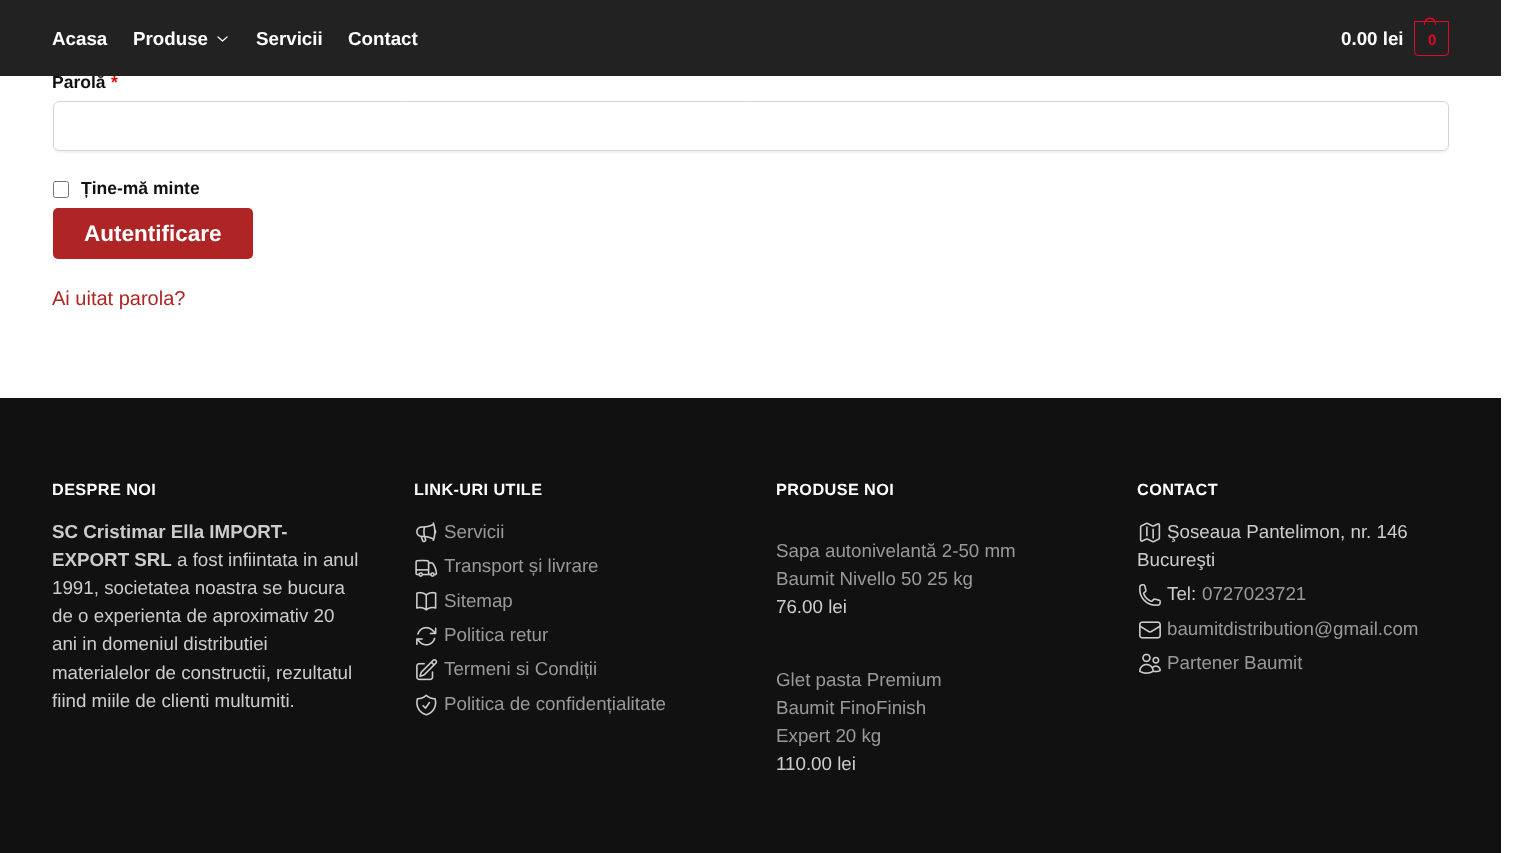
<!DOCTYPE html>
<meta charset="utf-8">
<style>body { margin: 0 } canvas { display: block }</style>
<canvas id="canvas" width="1519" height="853"></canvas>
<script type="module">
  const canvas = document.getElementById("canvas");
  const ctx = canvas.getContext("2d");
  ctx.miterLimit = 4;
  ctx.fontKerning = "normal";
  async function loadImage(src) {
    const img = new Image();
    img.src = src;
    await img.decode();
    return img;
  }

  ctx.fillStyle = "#ffffff";
  ctx.fillRect(0, 0, 1519, 853);
  ctx.font = "bold 17.5px Liberation Sans";
  ctx.fillStyle = "#111111";
  ctx.fillText("Parolă", 52, 88);
  ctx.fillStyle = "#df0202";
  ctx.fillText("*", 111, 88);
  ctx.fillStyle = "#222222";
  ctx.fillRect(0, 0, 1501, 76);
  ctx.font = "bold 18.75px Liberation Sans";
  ctx.fillStyle = "#ffffff";
  ctx.fillText("Acasa", 52, 45);
  ctx.fillText("Produse", 133, 45);
  ctx.beginPath();
  ctx.moveTo(227, 37);
  ctx.lineTo(222.5, 41);
  ctx.lineTo(218, 37);
  ctx.strokeStyle = "#ffffff";
  ctx.lineWidth = 1.2;
  ctx.lineCap = "round";
  ctx.lineJoin = "round";
  ctx.stroke();
  ctx.fillText("Servicii", 256, 45);
  ctx.fillText("Contact", 348, 45);
  ctx.fillText("0.00 lei", 1341, 45);
  ctx.beginPath();
  ctx.roundRect(1414.5, 21.5, 34, 34, [0, 0, 3.5, 3.5]);
  ctx.strokeStyle = "#df0a25";
  ctx.lineWidth = 1;
  ctx.lineJoin = "miter";
  ctx.stroke();
  ctx.fillStyle = "#df0a25";
  ctx.beginPath();
  ctx.moveTo(1430, 17.5);
  ctx.bezierCurveTo(1434.5, 17.5, 1436, 21, 1436, 25);
  ctx.lineTo(1424, 25);
  ctx.bezierCurveTo(1424, 21, 1425.5, 17.5, 1430, 17.5);
  ctx.closePath();
  ctx.moveTo(1430, 19);
  ctx.bezierCurveTo(1433.5, 19, 1435, 22, 1435, 25);
  ctx.lineTo(1425, 25);
  ctx.bezierCurveTo(1425, 22, 1426.5, 19, 1430, 19);
  ctx.closePath();
  ctx.fill("evenodd");
  ctx.letterSpacing = "-1px";
  ctx.font = "bold 15px Liberation Sans";
  ctx.fillText("0", 1428, 45);
  ctx.fillStyle = "rgba(0, 0, 0, 0.05)";
  ctx.filter = "blur(1px)";
  ctx.beginPath();
  ctx.roundRect(53, 103, 1396, 50, 6);
  ctx.fill();
  ctx.filter = "none";
  ctx.fillStyle = "#ffffff";
  ctx.beginPath();
  ctx.roundRect(53.5, 101.5, 1395, 49, 5.5);
  ctx.fill();
  ctx.strokeStyle = "#d2d6dc";
  ctx.stroke();
  ctx.beginPath();
  ctx.roundRect(53.5, 181.5, 15, 16, 2);
  ctx.strokeStyle = "#767676";
  ctx.stroke();
  ctx.letterSpacing = "0px";
  ctx.font = "bold 17.5px Liberation Sans";
  ctx.fillStyle = "#111111";
  ctx.fillText("Ține-mă minte", 81, 194);
  ctx.fillStyle = "#af2424";
  ctx.beginPath();
  ctx.roundRect(53, 208, 200, 51, 5);
  ctx.fill();
  ctx.font = "bold 22.5px Liberation Sans";
  ctx.fillStyle = "#ffffff";
  ctx.fillText("Autentificare", 84, 241);
  ctx.font = "20px Liberation Sans";
  ctx.fillStyle = "#af2424";
  ctx.fillText("Ai uitat parola?", 52, 305);
  ctx.fillStyle = "#111111";
  ctx.fillRect(0, 398, 1501, 455);
  ctx.letterSpacing = "0.4px";
  ctx.font = "bold 16.25px Liberation Sans";
  ctx.fillStyle = "#ffffff";
  ctx.fillText("DESPRE NOI", 52, 495);
  ctx.letterSpacing = "0px";
  ctx.font = "bold 18.75px Liberation Sans";
  ctx.fillStyle = "#cccccc";
  ctx.fillText("SC Cristimar Ella IMPORT-", 52, 538);
  ctx.fillText("EXPORT SRL", 52, 566);
  ctx.font = "18.75px Liberation Sans";
  ctx.fillText("a fost infiintata in anul", 177, 566);
  ctx.fillText("1991, societatea noastra se bucura", 52, 594);
  ctx.fillText("de o experienta de aproximativ 20", 52, 622);
  ctx.fillText("ani in domeniul distributiei", 52, 650);
  ctx.fillText("materialelor de constructii, rezultatul", 52, 679);
  ctx.fillText("fiind miile de clienti multumiti.", 52, 707);
  ctx.letterSpacing = "0.4px";
  ctx.font = "bold 16.25px Liberation Sans";
  ctx.fillStyle = "#ffffff";
  ctx.fillText("LINK-URI UTILE", 414, 495);
  ctx.drawImage(await loadImage("img1.png"), 416, 522, 21, 21);
  ctx.letterSpacing = "0px";
  ctx.font = "18.75px Liberation Sans";
  ctx.fillStyle = "#999999";
  ctx.fillText("Servicii", 444, 538);
  ctx.drawImage(await loadImage("img2.png"), 415, 559, 23, 18);
  ctx.fillText("Transport și livrare", 444, 572);
  ctx.drawImage(await loadImage("img3.png"), 416, 591, 21, 20);
  ctx.fillText("Sitemap", 444, 607);
  ctx.drawImage(await loadImage("img4.png"), 416, 626, 21, 20);
  ctx.fillText("Politica retur", 444, 641);
  ctx.drawImage(await loadImage("img5.png"), 416, 659, 22, 22);
  ctx.fillText("Termeni si Condiții", 444, 675);
  ctx.drawImage(await loadImage("img6.png"), 416, 694, 21, 22);
  ctx.fillText("Politica de confidențialitate", 444, 710);
  ctx.letterSpacing = "0.4px";
  ctx.font = "bold 16.25px Liberation Sans";
  ctx.fillStyle = "#ffffff";
  ctx.fillText("PRODUSE NOI", 776, 495);
  ctx.letterSpacing = "0px";
  ctx.font = "18.75px Liberation Sans";
  ctx.fillStyle = "#999999";
  ctx.fillText("Sapa autonivelantă 2-50 mm", 776, 557);
  ctx.fillText("Baumit Nivello 50 25 kg", 776, 585);
  ctx.fillStyle = "#cccccc";
  ctx.fillText("76.00 lei", 776, 613);
  ctx.fillStyle = "#999999";
  ctx.fillText("Glet pasta Premium", 776, 686);
  ctx.fillText("Baumit FinoFinish", 776, 714);
  ctx.fillText("Expert 20 kg", 776, 742);
  ctx.fillStyle = "#cccccc";
  ctx.fillText("110.00 lei", 776, 770);
  ctx.letterSpacing = "0.4px";
  ctx.font = "bold 16.25px Liberation Sans";
  ctx.fillStyle = "#ffffff";
  ctx.fillText("CONTACT", 1137, 495);
  ctx.drawImage(await loadImage("img7.png"), 1139, 522, 22, 21);
  ctx.letterSpacing = "0px";
  ctx.font = "18.75px Liberation Sans";
  ctx.fillStyle = "#cccccc";
  ctx.fillText("Şoseaua Pantelimon, nr. 146", 1167, 538);
  ctx.fillText("Bucureşti", 1137, 566);
  ctx.drawImage(await loadImage("img8.png"), 1139, 584, 22, 22);
  ctx.fillText("Tel:", 1167, 600);
  ctx.fillStyle = "#999999";
  ctx.fillText("0727023721", 1202, 600);
  ctx.drawImage(await loadImage("img9.png"), 1139, 621, 22, 18);
  ctx.fillText("baumitdistribution@gmail.com", 1167, 635);
  ctx.drawImage(await loadImage("img10.png"), 1139, 653, 22, 21);
  ctx.fillText("Partener Baumit", 1167, 669);
</script>
